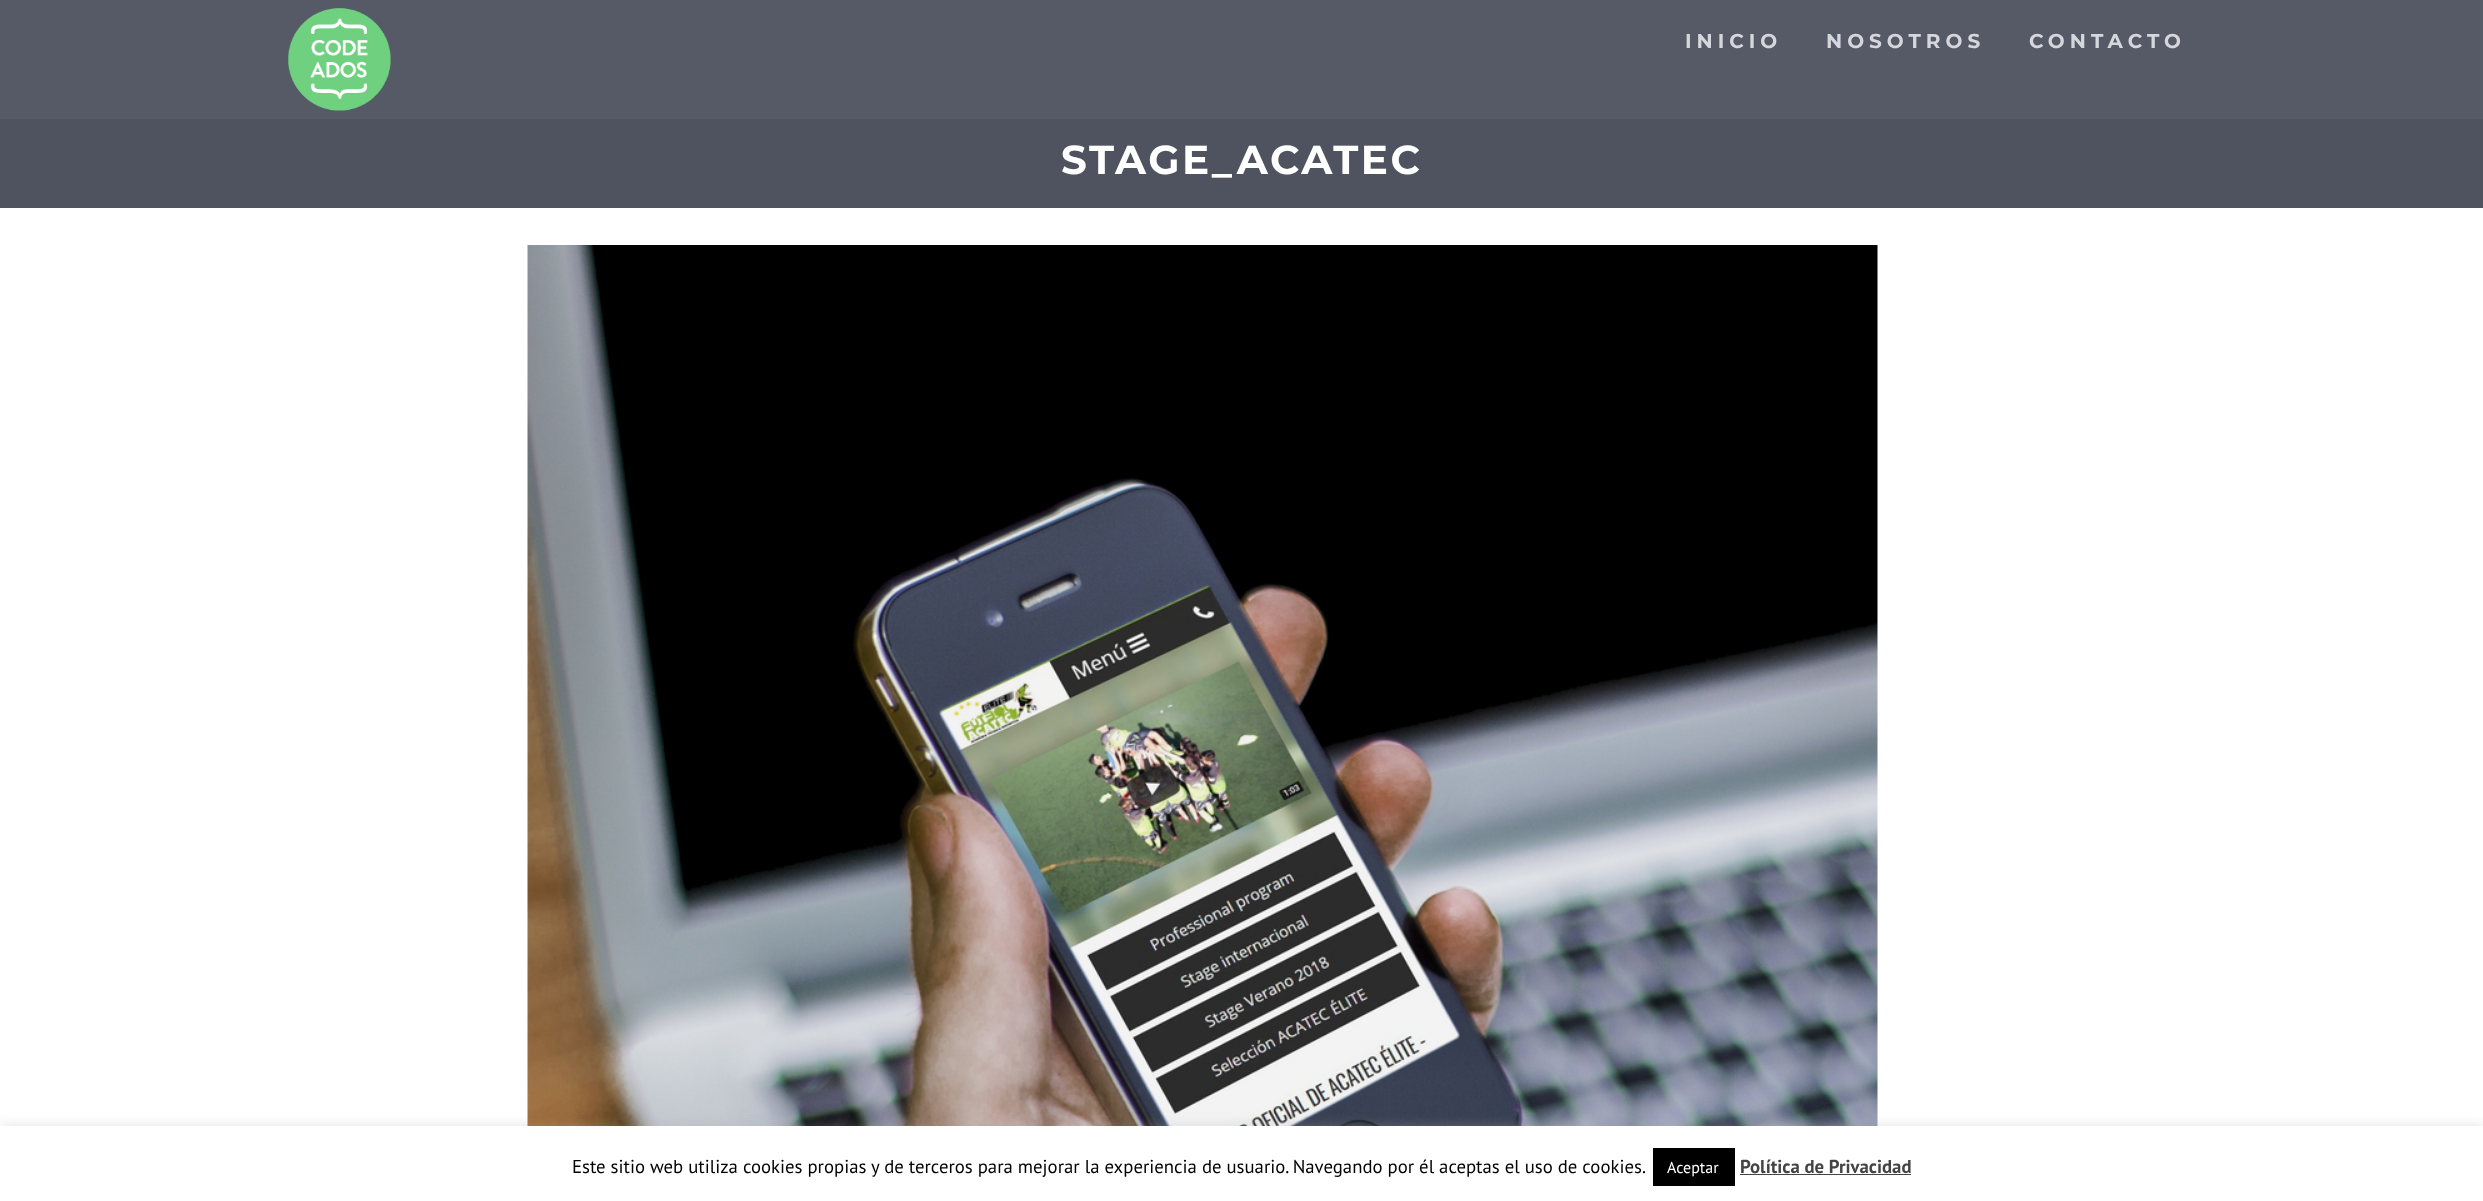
<!DOCTYPE html>
<meta charset="utf-8">
<style>body { margin: 0 } canvas { display: block }</style>
<canvas id="canvas" width="2483" height="1201"></canvas>
<script type="module">
  const canvas = document.getElementById("canvas");
  const ctx = canvas.getContext("2d");
  ctx.miterLimit = 4;
  ctx.fontKerning = "normal";
  async function loadImage(src) {
    const img = new Image();
    img.src = src;
    await img.decode();
    return img;
  }

  ctx.fillStyle = "#ffffff";
  ctx.fillRect(0, 0, 2483, 1201);
  ctx.fillStyle = "#565966";
  ctx.fillRect(0, 0, 2483, 119);
  ctx.drawImage(await loadImage("img1.png"), 288, 8, 103, 103);
  ctx.letterSpacing = "5px";
  ctx.font = "bold 20px Montserrat";
  ctx.fillStyle = "#d6d7dc";
  ctx.fillText("INICIO", 1685, 48);
  ctx.fillText("NOSOTROS", 1826, 48);
  ctx.fillText("CONTACTO", 2029, 48);
  ctx.fillStyle = "#4f525f";
  ctx.fillRect(0, 119, 2483, 89);
  ctx.letterSpacing = "2.5px";
  ctx.font = "bold 40.5px Montserrat";
  ctx.fillStyle = "#ffffff";
  ctx.fillText("STAGE_ACATEC", 1061, 174);
  ctx.drawImage(await loadImage("img2.png"), 527, 245, 1351, 881);
  ctx.fillStyle = "rgba(172, 171, 171, 0.3)";
  ctx.filter = "blur(6px)";
  ctx.beginPath();
  ctx.rect(0, 1125, 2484, 75);
  ctx.fill();
  ctx.filter = "none";
  ctx.fillStyle = "#ffffff";
  ctx.fillRect(0, 1126, 2483, 75);
  ctx.letterSpacing = "0px";
  ctx.font = "18.75px PT Sans";
  ctx.fillStyle = "#000000";
  ctx.fillText("Este sitio web utiliza cookies propias y de terceros para mejorar la experiencia de usuario. Navegando por él aceptas el uso de cookies.", 572, 1173);
  ctx.fillRect(1653, 1148, 82, 38);
  ctx.font = "16px PT Sans";
  ctx.fillStyle = "#ffffff";
  ctx.fillText("Aceptar", 1667, 1173);
  ctx.font = "bold 18.75px PT Sans";
  ctx.fillStyle = "#444444";
  ctx.fillText("Política de Privacidad", 1740, 1173);
  ctx.fillRect(1740, 1174, 171, 1);
</script>
